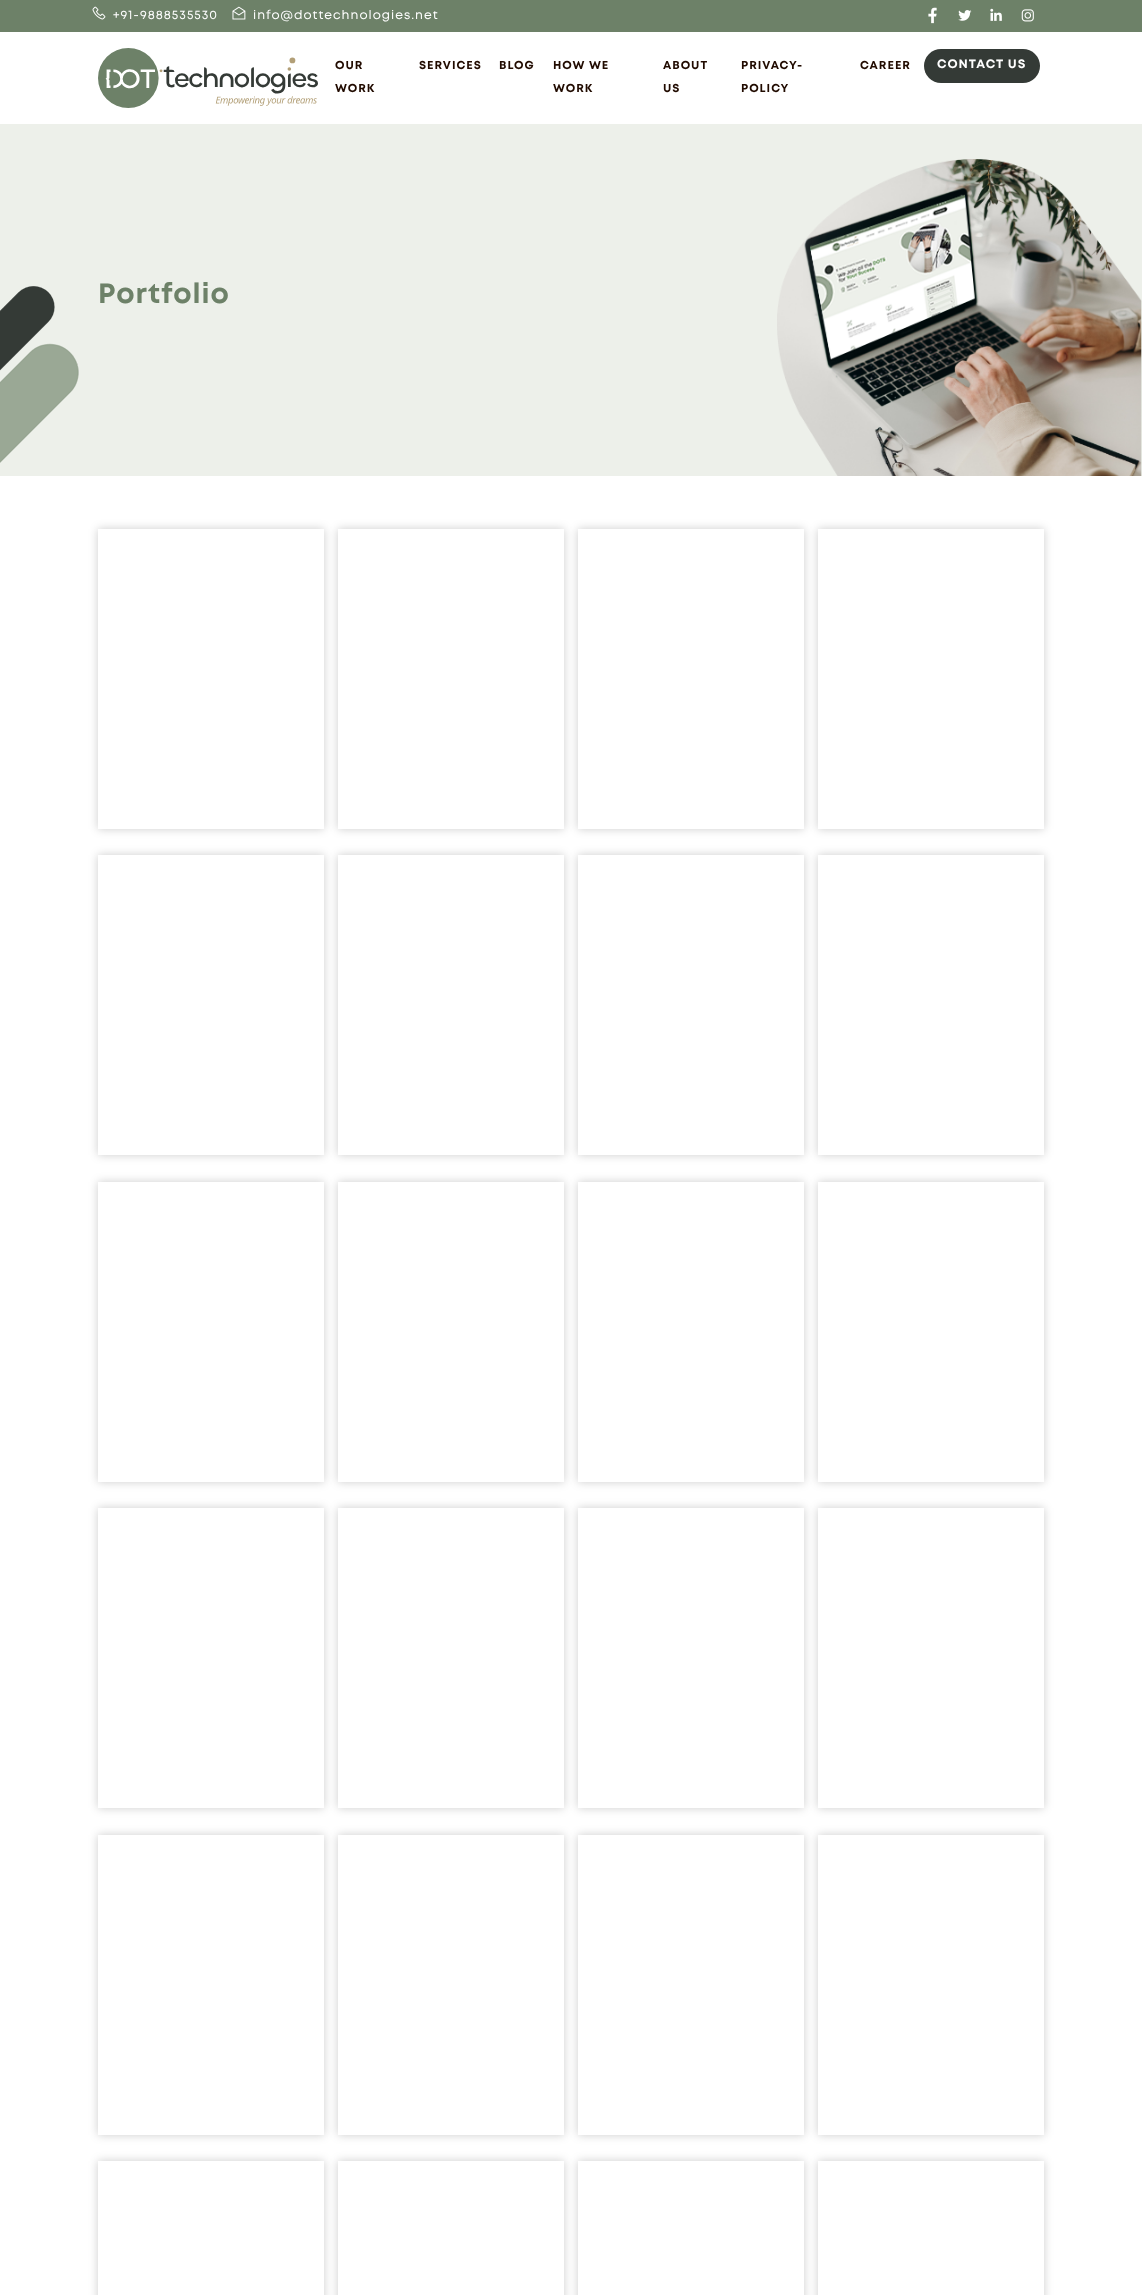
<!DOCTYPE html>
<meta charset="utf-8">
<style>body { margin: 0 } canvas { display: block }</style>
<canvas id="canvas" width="1142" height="2295"></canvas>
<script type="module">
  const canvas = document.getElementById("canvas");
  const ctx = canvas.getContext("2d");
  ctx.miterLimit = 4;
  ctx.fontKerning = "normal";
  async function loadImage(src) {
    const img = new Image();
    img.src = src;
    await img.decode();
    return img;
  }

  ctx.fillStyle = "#ffffff";
  ctx.fillRect(0, 0, 1142, 2295);
  ctx.fillStyle = "#6d8168";
  ctx.fillRect(0, 0, 1142, 32);
  ctx.drawImage(await loadImage("img1.png"), 92, 6, 14, 14);
  ctx.letterSpacing = "1px";
  ctx.font = "12.3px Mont";
  ctx.fillStyle = "#ffffff";
  ctx.fillText("+91-9888535530", 113, 19);
  ctx.drawImage(await loadImage("img2.png"), 232, 6, 14, 14);
  ctx.fillText("info@dottechnologies.net", 253, 19);
  ctx.drawImage(await loadImage("img3.png"), 928, 7, 9, 17);
  ctx.drawImage(await loadImage("img4.png"), 958, 10, 14, 11);
  ctx.drawImage(await loadImage("img5.png"), 990, 8, 12, 13);
  ctx.drawImage(await loadImage("img6.png"), 1021, 9, 13, 13);
  ctx.drawImage(await loadImage("img7.png"), 98, 48, 220, 60);
  ctx.font = "bold 11.5px Mont";
  ctx.fillStyle = "#210b00";
  ctx.fillText("OUR", 335, 69);
  ctx.fillText("WORK", 335, 92);
  ctx.fillText("SERVICES", 419, 69);
  ctx.fillText("BLOG", 499, 69);
  ctx.fillText("HOW WE", 553, 69);
  ctx.fillText("WORK", 553, 92);
  ctx.fillText("ABOUT", 663, 69);
  ctx.fillText("US", 663, 92);
  ctx.fillText("PRIVACY-", 741, 69);
  ctx.fillText("POLICY", 741, 92);
  ctx.fillText("CAREER", 860, 69);
  ctx.fillStyle = "#343a36";
  ctx.beginPath();
  ctx.roundRect(924, 49, 116, 34, 17);
  ctx.fill();
  ctx.font = "bold 12.3px Mont";
  ctx.fillStyle = "#ffffff";
  ctx.fillText("CONTACT US", 937, 68);
  ctx.fillStyle = "#edf0ea";
  ctx.fillRect(0, 124, 1142, 352);
  ctx.drawImage(await loadImage("img8.png"), 0, 159, 1142, 317);
  ctx.font = "bold 28px Mont";
  ctx.fillStyle = "#6d8168";
  ctx.fillText("Portfolio", 98, 303);
  ctx.save();
  ctx.beginPath();
  ctx.moveTo(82, 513);
  ctx.lineTo(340, 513);
  ctx.lineTo(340, 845);
  ctx.lineTo(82, 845);
  ctx.closePath();
  ctx.moveTo(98, 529);
  ctx.lineTo(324, 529);
  ctx.lineTo(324, 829);
  ctx.lineTo(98, 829);
  ctx.closePath();
  ctx.clip("evenodd");
  ctx.fillStyle = "rgba(0, 0, 0, 0.2)";
  ctx.filter = "blur(5px)";
  ctx.beginPath();
  ctx.rect(98, 529, 226, 300);
  ctx.fill();
  ctx.filter = "none";
  ctx.restore();
  ctx.save();
  ctx.beginPath();
  ctx.moveTo(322, 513);
  ctx.lineTo(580, 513);
  ctx.lineTo(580, 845);
  ctx.lineTo(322, 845);
  ctx.closePath();
  ctx.moveTo(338, 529);
  ctx.lineTo(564, 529);
  ctx.lineTo(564, 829);
  ctx.lineTo(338, 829);
  ctx.closePath();
  ctx.clip("evenodd");
  ctx.fillStyle = "rgba(0, 0, 0, 0.2)";
  ctx.filter = "blur(5px)";
  ctx.beginPath();
  ctx.rect(338, 529, 226, 300);
  ctx.fill();
  ctx.filter = "none";
  ctx.restore();
  ctx.save();
  ctx.beginPath();
  ctx.moveTo(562, 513);
  ctx.lineTo(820, 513);
  ctx.lineTo(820, 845);
  ctx.lineTo(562, 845);
  ctx.closePath();
  ctx.moveTo(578, 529);
  ctx.lineTo(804, 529);
  ctx.lineTo(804, 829);
  ctx.lineTo(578, 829);
  ctx.closePath();
  ctx.clip("evenodd");
  ctx.fillStyle = "rgba(0, 0, 0, 0.2)";
  ctx.filter = "blur(5px)";
  ctx.beginPath();
  ctx.rect(578, 529, 226, 300);
  ctx.fill();
  ctx.filter = "none";
  ctx.restore();
  ctx.save();
  ctx.beginPath();
  ctx.moveTo(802, 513);
  ctx.lineTo(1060, 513);
  ctx.lineTo(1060, 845);
  ctx.lineTo(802, 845);
  ctx.closePath();
  ctx.moveTo(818, 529);
  ctx.lineTo(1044, 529);
  ctx.lineTo(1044, 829);
  ctx.lineTo(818, 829);
  ctx.closePath();
  ctx.clip("evenodd");
  ctx.fillStyle = "rgba(0, 0, 0, 0.2)";
  ctx.filter = "blur(5px)";
  ctx.beginPath();
  ctx.rect(818, 529, 226, 300);
  ctx.fill();
  ctx.filter = "none";
  ctx.restore();
  ctx.save();
  ctx.beginPath();
  ctx.moveTo(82, 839);
  ctx.lineTo(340, 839);
  ctx.lineTo(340, 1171);
  ctx.lineTo(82, 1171);
  ctx.closePath();
  ctx.moveTo(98, 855);
  ctx.lineTo(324, 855);
  ctx.lineTo(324, 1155);
  ctx.lineTo(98, 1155);
  ctx.closePath();
  ctx.clip("evenodd");
  ctx.fillStyle = "rgba(0, 0, 0, 0.2)";
  ctx.filter = "blur(5px)";
  ctx.beginPath();
  ctx.rect(98, 855, 226, 300);
  ctx.fill();
  ctx.filter = "none";
  ctx.restore();
  ctx.save();
  ctx.beginPath();
  ctx.moveTo(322, 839);
  ctx.lineTo(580, 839);
  ctx.lineTo(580, 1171);
  ctx.lineTo(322, 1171);
  ctx.closePath();
  ctx.moveTo(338, 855);
  ctx.lineTo(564, 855);
  ctx.lineTo(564, 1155);
  ctx.lineTo(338, 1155);
  ctx.closePath();
  ctx.clip("evenodd");
  ctx.fillStyle = "rgba(0, 0, 0, 0.2)";
  ctx.filter = "blur(5px)";
  ctx.beginPath();
  ctx.rect(338, 855, 226, 300);
  ctx.fill();
  ctx.filter = "none";
  ctx.restore();
  ctx.save();
  ctx.beginPath();
  ctx.moveTo(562, 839);
  ctx.lineTo(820, 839);
  ctx.lineTo(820, 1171);
  ctx.lineTo(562, 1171);
  ctx.closePath();
  ctx.moveTo(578, 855);
  ctx.lineTo(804, 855);
  ctx.lineTo(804, 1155);
  ctx.lineTo(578, 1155);
  ctx.closePath();
  ctx.clip("evenodd");
  ctx.fillStyle = "rgba(0, 0, 0, 0.2)";
  ctx.filter = "blur(5px)";
  ctx.beginPath();
  ctx.rect(578, 855, 226, 300);
  ctx.fill();
  ctx.filter = "none";
  ctx.restore();
  ctx.save();
  ctx.beginPath();
  ctx.moveTo(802, 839);
  ctx.lineTo(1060, 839);
  ctx.lineTo(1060, 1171);
  ctx.lineTo(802, 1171);
  ctx.closePath();
  ctx.moveTo(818, 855);
  ctx.lineTo(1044, 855);
  ctx.lineTo(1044, 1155);
  ctx.lineTo(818, 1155);
  ctx.closePath();
  ctx.clip("evenodd");
  ctx.fillStyle = "rgba(0, 0, 0, 0.2)";
  ctx.filter = "blur(5px)";
  ctx.beginPath();
  ctx.rect(818, 855, 226, 300);
  ctx.fill();
  ctx.filter = "none";
  ctx.restore();
  ctx.save();
  ctx.beginPath();
  ctx.moveTo(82, 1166);
  ctx.lineTo(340, 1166);
  ctx.lineTo(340, 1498);
  ctx.lineTo(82, 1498);
  ctx.closePath();
  ctx.moveTo(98, 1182);
  ctx.lineTo(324, 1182);
  ctx.lineTo(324, 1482);
  ctx.lineTo(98, 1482);
  ctx.closePath();
  ctx.clip("evenodd");
  ctx.fillStyle = "rgba(0, 0, 0, 0.2)";
  ctx.filter = "blur(5px)";
  ctx.beginPath();
  ctx.rect(98, 1182, 226, 300);
  ctx.fill();
  ctx.filter = "none";
  ctx.restore();
  ctx.save();
  ctx.beginPath();
  ctx.moveTo(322, 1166);
  ctx.lineTo(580, 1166);
  ctx.lineTo(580, 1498);
  ctx.lineTo(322, 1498);
  ctx.closePath();
  ctx.moveTo(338, 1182);
  ctx.lineTo(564, 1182);
  ctx.lineTo(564, 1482);
  ctx.lineTo(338, 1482);
  ctx.closePath();
  ctx.clip("evenodd");
  ctx.fillStyle = "rgba(0, 0, 0, 0.2)";
  ctx.filter = "blur(5px)";
  ctx.beginPath();
  ctx.rect(338, 1182, 226, 300);
  ctx.fill();
  ctx.filter = "none";
  ctx.restore();
  ctx.save();
  ctx.beginPath();
  ctx.moveTo(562, 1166);
  ctx.lineTo(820, 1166);
  ctx.lineTo(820, 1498);
  ctx.lineTo(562, 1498);
  ctx.closePath();
  ctx.moveTo(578, 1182);
  ctx.lineTo(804, 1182);
  ctx.lineTo(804, 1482);
  ctx.lineTo(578, 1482);
  ctx.closePath();
  ctx.clip("evenodd");
  ctx.fillStyle = "rgba(0, 0, 0, 0.2)";
  ctx.filter = "blur(5px)";
  ctx.beginPath();
  ctx.rect(578, 1182, 226, 300);
  ctx.fill();
  ctx.filter = "none";
  ctx.restore();
  ctx.save();
  ctx.beginPath();
  ctx.moveTo(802, 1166);
  ctx.lineTo(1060, 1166);
  ctx.lineTo(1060, 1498);
  ctx.lineTo(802, 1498);
  ctx.closePath();
  ctx.moveTo(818, 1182);
  ctx.lineTo(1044, 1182);
  ctx.lineTo(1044, 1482);
  ctx.lineTo(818, 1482);
  ctx.closePath();
  ctx.clip("evenodd");
  ctx.fillStyle = "rgba(0, 0, 0, 0.2)";
  ctx.filter = "blur(5px)";
  ctx.beginPath();
  ctx.rect(818, 1182, 226, 300);
  ctx.fill();
  ctx.filter = "none";
  ctx.restore();
  ctx.save();
  ctx.beginPath();
  ctx.moveTo(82, 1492);
  ctx.lineTo(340, 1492);
  ctx.lineTo(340, 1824);
  ctx.lineTo(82, 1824);
  ctx.closePath();
  ctx.moveTo(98, 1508);
  ctx.lineTo(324, 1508);
  ctx.lineTo(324, 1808);
  ctx.lineTo(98, 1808);
  ctx.closePath();
  ctx.clip("evenodd");
  ctx.fillStyle = "rgba(0, 0, 0, 0.2)";
  ctx.filter = "blur(5px)";
  ctx.beginPath();
  ctx.rect(98, 1508, 226, 300);
  ctx.fill();
  ctx.filter = "none";
  ctx.restore();
  ctx.save();
  ctx.beginPath();
  ctx.moveTo(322, 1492);
  ctx.lineTo(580, 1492);
  ctx.lineTo(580, 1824);
  ctx.lineTo(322, 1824);
  ctx.closePath();
  ctx.moveTo(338, 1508);
  ctx.lineTo(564, 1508);
  ctx.lineTo(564, 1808);
  ctx.lineTo(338, 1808);
  ctx.closePath();
  ctx.clip("evenodd");
  ctx.fillStyle = "rgba(0, 0, 0, 0.2)";
  ctx.filter = "blur(5px)";
  ctx.beginPath();
  ctx.rect(338, 1508, 226, 300);
  ctx.fill();
  ctx.filter = "none";
  ctx.restore();
  ctx.save();
  ctx.beginPath();
  ctx.moveTo(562, 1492);
  ctx.lineTo(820, 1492);
  ctx.lineTo(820, 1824);
  ctx.lineTo(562, 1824);
  ctx.closePath();
  ctx.moveTo(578, 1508);
  ctx.lineTo(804, 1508);
  ctx.lineTo(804, 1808);
  ctx.lineTo(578, 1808);
  ctx.closePath();
  ctx.clip("evenodd");
  ctx.fillStyle = "rgba(0, 0, 0, 0.2)";
  ctx.filter = "blur(5px)";
  ctx.beginPath();
  ctx.rect(578, 1508, 226, 300);
  ctx.fill();
  ctx.filter = "none";
  ctx.restore();
  ctx.save();
  ctx.beginPath();
  ctx.moveTo(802, 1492);
  ctx.lineTo(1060, 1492);
  ctx.lineTo(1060, 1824);
  ctx.lineTo(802, 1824);
  ctx.closePath();
  ctx.moveTo(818, 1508);
  ctx.lineTo(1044, 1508);
  ctx.lineTo(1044, 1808);
  ctx.lineTo(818, 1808);
  ctx.closePath();
  ctx.clip("evenodd");
  ctx.fillStyle = "rgba(0, 0, 0, 0.2)";
  ctx.filter = "blur(5px)";
  ctx.beginPath();
  ctx.rect(818, 1508, 226, 300);
  ctx.fill();
  ctx.filter = "none";
  ctx.restore();
  ctx.save();
  ctx.beginPath();
  ctx.moveTo(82, 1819);
  ctx.lineTo(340, 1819);
  ctx.lineTo(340, 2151);
  ctx.lineTo(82, 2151);
  ctx.closePath();
  ctx.moveTo(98, 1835);
  ctx.lineTo(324, 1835);
  ctx.lineTo(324, 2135);
  ctx.lineTo(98, 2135);
  ctx.closePath();
  ctx.clip("evenodd");
  ctx.fillStyle = "rgba(0, 0, 0, 0.2)";
  ctx.filter = "blur(5px)";
  ctx.beginPath();
  ctx.rect(98, 1835, 226, 300);
  ctx.fill();
  ctx.filter = "none";
  ctx.restore();
  ctx.save();
  ctx.beginPath();
  ctx.moveTo(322, 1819);
  ctx.lineTo(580, 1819);
  ctx.lineTo(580, 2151);
  ctx.lineTo(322, 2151);
  ctx.closePath();
  ctx.moveTo(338, 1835);
  ctx.lineTo(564, 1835);
  ctx.lineTo(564, 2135);
  ctx.lineTo(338, 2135);
  ctx.closePath();
  ctx.clip("evenodd");
  ctx.fillStyle = "rgba(0, 0, 0, 0.2)";
  ctx.filter = "blur(5px)";
  ctx.beginPath();
  ctx.rect(338, 1835, 226, 300);
  ctx.fill();
  ctx.filter = "none";
  ctx.restore();
  ctx.save();
  ctx.beginPath();
  ctx.moveTo(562, 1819);
  ctx.lineTo(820, 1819);
  ctx.lineTo(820, 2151);
  ctx.lineTo(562, 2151);
  ctx.closePath();
  ctx.moveTo(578, 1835);
  ctx.lineTo(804, 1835);
  ctx.lineTo(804, 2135);
  ctx.lineTo(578, 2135);
  ctx.closePath();
  ctx.clip("evenodd");
  ctx.fillStyle = "rgba(0, 0, 0, 0.2)";
  ctx.filter = "blur(5px)";
  ctx.beginPath();
  ctx.rect(578, 1835, 226, 300);
  ctx.fill();
  ctx.filter = "none";
  ctx.restore();
  ctx.save();
  ctx.beginPath();
  ctx.moveTo(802, 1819);
  ctx.lineTo(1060, 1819);
  ctx.lineTo(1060, 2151);
  ctx.lineTo(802, 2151);
  ctx.closePath();
  ctx.moveTo(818, 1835);
  ctx.lineTo(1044, 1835);
  ctx.lineTo(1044, 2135);
  ctx.lineTo(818, 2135);
  ctx.closePath();
  ctx.clip("evenodd");
  ctx.fillStyle = "rgba(0, 0, 0, 0.2)";
  ctx.filter = "blur(5px)";
  ctx.beginPath();
  ctx.rect(818, 1835, 226, 300);
  ctx.fill();
  ctx.filter = "none";
  ctx.restore();
  ctx.save();
  ctx.beginPath();
  ctx.moveTo(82, 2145);
  ctx.lineTo(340, 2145);
  ctx.lineTo(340, 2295);
  ctx.lineTo(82, 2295);
  ctx.closePath();
  ctx.moveTo(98, 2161);
  ctx.lineTo(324, 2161);
  ctx.lineTo(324, 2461);
  ctx.lineTo(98, 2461);
  ctx.closePath();
  ctx.clip("evenodd");
  ctx.fillStyle = "rgba(0, 0, 0, 0.2)";
  ctx.filter = "blur(5px)";
  ctx.beginPath();
  ctx.rect(98, 2161, 226, 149);
  ctx.fill();
  ctx.filter = "none";
  ctx.restore();
  ctx.save();
  ctx.beginPath();
  ctx.moveTo(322, 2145);
  ctx.lineTo(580, 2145);
  ctx.lineTo(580, 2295);
  ctx.lineTo(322, 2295);
  ctx.closePath();
  ctx.moveTo(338, 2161);
  ctx.lineTo(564, 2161);
  ctx.lineTo(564, 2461);
  ctx.lineTo(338, 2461);
  ctx.closePath();
  ctx.clip("evenodd");
  ctx.fillStyle = "rgba(0, 0, 0, 0.2)";
  ctx.filter = "blur(5px)";
  ctx.beginPath();
  ctx.rect(338, 2161, 226, 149);
  ctx.fill();
  ctx.filter = "none";
  ctx.restore();
  ctx.save();
  ctx.beginPath();
  ctx.moveTo(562, 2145);
  ctx.lineTo(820, 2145);
  ctx.lineTo(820, 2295);
  ctx.lineTo(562, 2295);
  ctx.closePath();
  ctx.moveTo(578, 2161);
  ctx.lineTo(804, 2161);
  ctx.lineTo(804, 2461);
  ctx.lineTo(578, 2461);
  ctx.closePath();
  ctx.clip("evenodd");
  ctx.fillStyle = "rgba(0, 0, 0, 0.2)";
  ctx.filter = "blur(5px)";
  ctx.beginPath();
  ctx.rect(578, 2161, 226, 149);
  ctx.fill();
  ctx.filter = "none";
  ctx.restore();
  ctx.save();
  ctx.beginPath();
  ctx.moveTo(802, 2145);
  ctx.lineTo(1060, 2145);
  ctx.lineTo(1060, 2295);
  ctx.lineTo(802, 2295);
  ctx.closePath();
  ctx.moveTo(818, 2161);
  ctx.lineTo(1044, 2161);
  ctx.lineTo(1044, 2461);
  ctx.lineTo(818, 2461);
  ctx.closePath();
  ctx.clip("evenodd");
  ctx.fillStyle = "rgba(0, 0, 0, 0.2)";
  ctx.filter = "blur(5px)";
  ctx.beginPath();
  ctx.rect(818, 2161, 226, 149);
  ctx.fill();
  ctx.filter = "none";
  ctx.restore();
</script>
